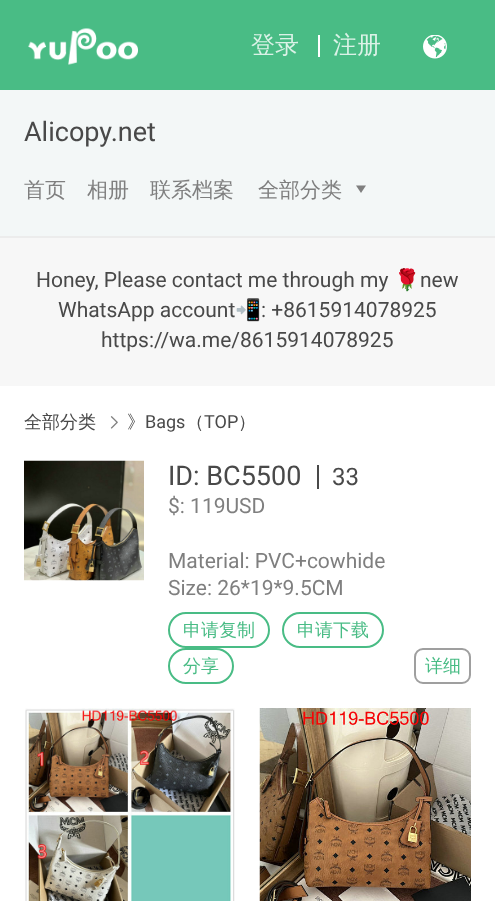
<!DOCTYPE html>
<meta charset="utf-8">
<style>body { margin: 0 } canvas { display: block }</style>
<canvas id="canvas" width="495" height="901"></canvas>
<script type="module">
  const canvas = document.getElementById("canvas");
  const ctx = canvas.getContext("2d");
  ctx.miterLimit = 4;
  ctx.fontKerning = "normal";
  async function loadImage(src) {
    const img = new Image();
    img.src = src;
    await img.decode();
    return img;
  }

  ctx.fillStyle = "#ffffff";
  ctx.fillRect(0, 0, 495, 901);
  ctx.fillStyle = "#49bc85";
  ctx.fillRect(0, 0, 495, 90);
  ctx.drawImage(await loadImage("img1.png"), 28, 28, 110, 37);
  ctx.font = "500 24px WenQuanYi Zen Hei";
  ctx.fillStyle = "#dbf2e7";
  ctx.fillText("登录", 251, 53);
  ctx.fillStyle = "#ffffff";
  ctx.fillRect(318, 35, 2, 22);
  ctx.fillStyle = "#dbf2e7";
  ctx.fillText("注册", 333, 53);
  ctx.drawImage(await loadImage("img2.png"), 423, 35, 24, 24);
  ctx.fillStyle = "#f3f7f7";
  ctx.fillRect(0, 90, 495, 146);
  ctx.font = "27px Roboto";
  ctx.fillStyle = "#494949";
  ctx.fillText("Alicopy.net", 24, 141);
  ctx.font = "500 21px WenQuanYi Zen Hei";
  ctx.fillStyle = "#7f7f7f";
  ctx.fillText("首页", 24, 197);
  ctx.fillText("相册", 87, 197);
  ctx.fillText("联系档案", 150, 197);
  ctx.fillText("全部分类", 258, 197);
  ctx.beginPath();
  ctx.moveTo(361, 193);
  ctx.lineTo(356, 185.5);
  ctx.lineTo(366, 185.5);
  ctx.closePath();
  ctx.fill();
  ctx.fillStyle = "#f7f7f7";
  ctx.fillRect(0, 238, 495, 148);
  ctx.fillStyle = "#ececec";
  ctx.fillRect(0, 236, 495, 2);
  ctx.font = "21px Roboto";
  ctx.fillStyle = "#494949";
  ctx.fillText("Honey, Please contact me through my", 36, 287);
  ctx.font = "21px Noto Color Emoji";
  ctx.fillText("🌹", 394, 287);
  ctx.font = "21px Roboto";
  ctx.fillText("new", 420, 287);
  ctx.fillText("WhatsApp account", 58, 317);
  ctx.font = "21px Noto Color Emoji";
  ctx.fillText("📲", 235, 317);
  ctx.font = "21px Roboto";
  ctx.fillText(": +8615914078925", 261, 317);
  ctx.fillText("https://wa.me/8615914078925", 101, 347);
  ctx.font = "500 18px WenQuanYi Zen Hei";
  ctx.fillText("全部分类", 24, 428);
  ctx.drawImage(await loadImage("img3.png"), 110, 416, 8, 13);
  ctx.fillText("》", 127, 428);
  ctx.font = "18px Roboto";
  ctx.fillText("Bags", 145, 428);
  ctx.font = "500 18px WenQuanYi Zen Hei";
  ctx.fillText("（", 186, 428);
  ctx.font = "18px Roboto";
  ctx.fillText("TOP", 204, 428);
  ctx.font = "500 18px WenQuanYi Zen Hei";
  ctx.fillText("）", 238, 428);
  ctx.drawImage(await loadImage("img4.png"), 24, 460, 120, 121);
  ctx.font = "27px Roboto";
  ctx.fillText("ID: BC5500", 168, 485);
  ctx.fillRect(317, 465, 2, 24);
  ctx.font = "24px Roboto";
  ctx.fillText("33", 332, 485);
  ctx.font = "21px Roboto";
  ctx.fillStyle = "#7f7f7f";
  ctx.fillText("$: 119USD", 168, 513);
  ctx.fillText("Material: PVC+cowhide", 168, 568);
  ctx.fillText("Size: 26*19*9.5CM", 168, 595);
  ctx.beginPath();
  ctx.roundRect(169, 613, 100, 34, 17);
  ctx.strokeStyle = "#49bc85";
  ctx.lineWidth = 2;
  ctx.stroke();
  ctx.font = "500 18px WenQuanYi Zen Hei";
  ctx.fillStyle = "#49bc85";
  ctx.fillText("申请复制", 183, 636);
  ctx.beginPath();
  ctx.roundRect(283, 613, 100, 34, 17);
  ctx.stroke();
  ctx.fillText("申请下载", 297, 636);
  ctx.beginPath();
  ctx.roundRect(169, 649, 64, 34, 17);
  ctx.stroke();
  ctx.fillText("分享", 183, 672);
  ctx.beginPath();
  ctx.roundRect(415, 649, 55, 34, 8);
  ctx.strokeStyle = "#9f9f9f";
  ctx.stroke();
  ctx.fillText("详细", 425, 672);
  ctx.drawImage(await loadImage("img5.png"), 25, 708, 210, 193);
  ctx.drawImage(await loadImage("img6.png"), 259, 708, 212, 193);
</script>
